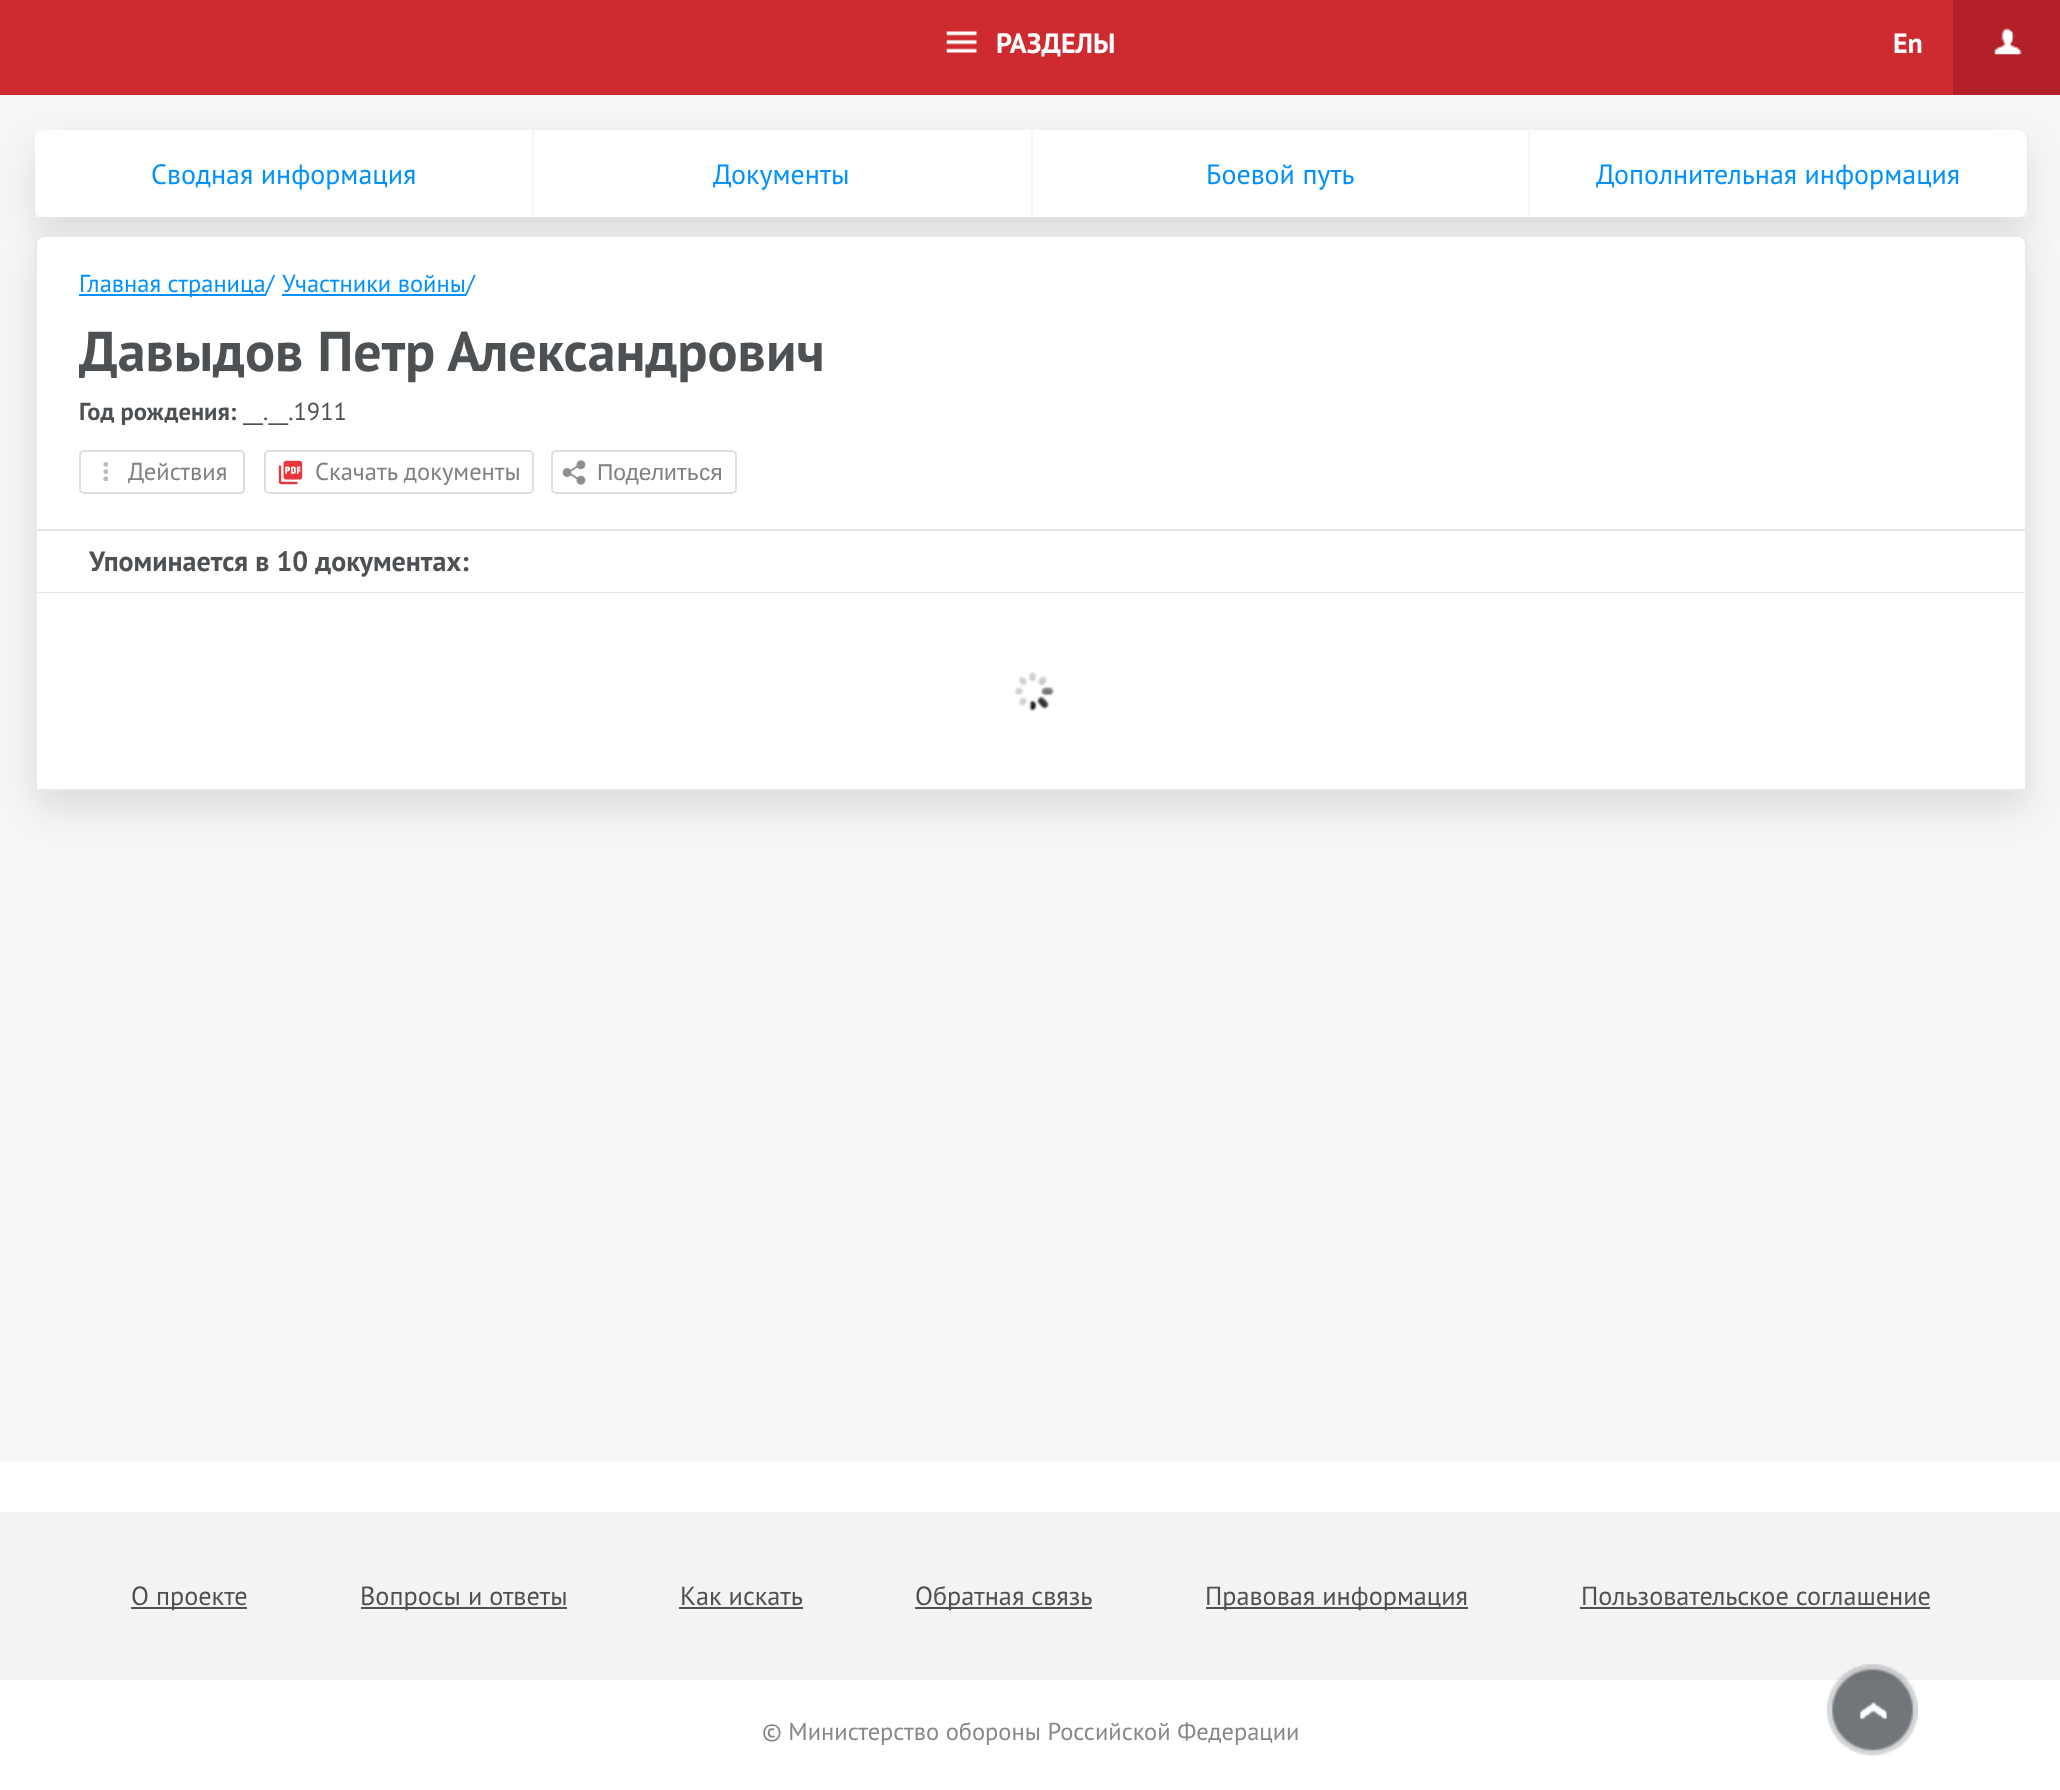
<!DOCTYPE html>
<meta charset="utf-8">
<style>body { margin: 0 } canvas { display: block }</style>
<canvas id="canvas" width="2060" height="1790"></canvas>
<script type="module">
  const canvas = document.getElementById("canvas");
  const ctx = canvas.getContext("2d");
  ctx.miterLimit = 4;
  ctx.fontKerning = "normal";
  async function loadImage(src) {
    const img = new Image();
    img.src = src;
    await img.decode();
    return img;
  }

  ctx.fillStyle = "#ffffff";
  ctx.fillRect(0, 0, 2060, 1790);
  ctx.fillStyle = "#ce2b30";
  ctx.fillRect(0, 0, 1953, 95);
  ctx.drawImage(await loadImage("img1.png"), 946, 31, 31, 22);
  ctx.font = "bold 28px PT Sans";
  ctx.fillStyle = "#ffffff";
  ctx.fillText("РАЗДЕЛЫ", 996, 53);
  ctx.fillText("En", 1893, 53);
  ctx.fillStyle = "#f6f6f6";
  ctx.fillRect(0, 95, 2060, 1366);
  ctx.save();
  ctx.beginPath();
  ctx.moveTo(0, 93);
  ctx.lineTo(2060, 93);
  ctx.lineTo(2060, 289);
  ctx.lineTo(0, 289);
  ctx.closePath();
  ctx.moveTo(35, 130);
  ctx.lineTo(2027, 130);
  ctx.lineTo(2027, 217);
  ctx.lineTo(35, 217);
  ctx.closePath();
  ctx.clip("evenodd");
  ctx.fillStyle = "rgba(0, 0, 0, 0.1)";
  ctx.filter = "blur(17.5px)";
  ctx.beginPath();
  ctx.rect(35, 147, 1992, 88);
  ctx.fill();
  ctx.filter = "none";
  ctx.restore();
  ctx.fillStyle = "#b42028";
  ctx.fillRect(1953, 0, 107, 95);
  ctx.drawImage(await loadImage("img2.png"), 1993, 28, 29, 27);
  ctx.fillStyle = "#ffffff";
  ctx.beginPath();
  ctx.roundRect(35, 130, 499, 87, [9, 0, 0, 9]);
  ctx.fill();
  ctx.fillStyle = "#f6f6f6";
  ctx.fillRect(532, 130, 2, 87);
  ctx.font = "28px PT Sans";
  ctx.fillStyle = "#0090ff";
  ctx.fillText("Сводная информация", 151, 184);
  ctx.fillStyle = "#ffffff";
  ctx.fillRect(534, 130, 497, 87);
  ctx.fillStyle = "#0090ff";
  ctx.fillText("Документы", 713, 184);
  ctx.fillStyle = "#ffffff";
  ctx.fillRect(1033, 130, 495, 87);
  ctx.fillStyle = "#0090ff";
  ctx.fillText("Боевой путь", 1206, 184);
  ctx.fillStyle = "#e8e8e8";
  ctx.beginPath();
  ctx.moveTo(2018, 217);
  ctx.lineTo(2019, 217);
  ctx.bezierCurveTo(2024, 217, 2028, 213, 2028, 208);
  ctx.lineTo(2028, 139);
  ctx.bezierCurveTo(2028, 135, 2025, 131, 2022, 130);
  ctx.bezierCurveTo(2024, 132, 2026, 135, 2026, 138);
  ctx.lineTo(2026, 208);
  ctx.bezierCurveTo(2026, 213, 2023, 217, 2018, 217);
  ctx.closePath();
  ctx.fill();
  ctx.fillStyle = "#ffffff";
  ctx.beginPath();
  ctx.roundRect(1530, 130, 497, 87, [0, 9, 9, 0]);
  ctx.fill();
  ctx.fillStyle = "#0090ff";
  ctx.fillText("Дополнительная информация", 1596, 184);
  ctx.fillStyle = "rgba(0, 0, 0, 0.1)";
  ctx.filter = "blur(17.5px)";
  ctx.beginPath();
  ctx.roundRect(35, 252, 1992, 557, 9);
  ctx.fill();
  ctx.filter = "none";
  ctx.fillStyle = "#ffffff";
  ctx.beginPath();
  ctx.roundRect(36, 236, 1990, 554, 8);
  ctx.fill();
  ctx.strokeStyle = "#e9e9e9";
  ctx.lineWidth = 2;
  ctx.stroke();
  ctx.fillStyle = "#0090ff";
  ctx.fillRect(79, 294, 187, 2);
  ctx.font = "24.5px PT Sans";
  ctx.fillText("Главная страница/", 79, 292);
  ctx.fillRect(282, 294, 184, 2);
  ctx.fillText("Участники войны/", 282, 292);
  ctx.font = "bold 56px PT Sans";
  ctx.fillStyle = "#4e5154";
  ctx.fillText("Давыдов Петр Александрович", 79, 371);
  ctx.font = "bold 24.5px PT Sans";
  ctx.fillText("Год рождения:", 79, 420);
  ctx.font = "24.5px PT Sans";
  ctx.fillText("__.__.1911", 243, 420);
  ctx.beginPath();
  ctx.roundRect(80, 451, 164, 42, 4);
  ctx.strokeStyle = "#dcdde4";
  ctx.stroke();
  ctx.drawImage(await loadImage("img3.png"), 103, 462, 5, 19);
  ctx.fillStyle = "#808080";
  ctx.fillText("Действия", 128, 480);
  ctx.beginPath();
  ctx.roundRect(265, 451, 268, 42, 4);
  ctx.stroke();
  ctx.drawImage(await loadImage("img4.png"), 278, 460, 25, 25);
  ctx.fillText("Скачать документы", 315, 480);
  ctx.beginPath();
  ctx.roundRect(552, 451, 184, 42, 4);
  ctx.stroke();
  ctx.drawImage(await loadImage("img5.png"), 562, 460, 24, 25);
  ctx.font = "22.75px Liberation Sans";
  ctx.fillText("Поделиться", 597, 480);
  ctx.fillStyle = "#e6e6e6";
  ctx.fillRect(37, 529, 1988, 2);
  ctx.fillRect(37, 592, 1988, 1);
  ctx.font = "bold 28px PT Sans";
  ctx.fillStyle = "#4e5154";
  ctx.fillText("Упоминается в 10 документах:", 89, 571);
  ctx.fillStyle = "#ffffff";
  ctx.fillRect(37, 783, 1988, 6);
  ctx.drawImage(await loadImage("img6.png"), 1014, 671, 41, 41);
  ctx.fillStyle = "#f4f3f3";
  ctx.fillRect(0, 1512, 2060, 168);
  ctx.drawImage(await loadImage("img7.png"), 1827, 1664, 91, 92);
  ctx.fillStyle = "#4e5154";
  ctx.fillRect(131, 1607, 116, 2);
  ctx.font = "26.25px PT Sans";
  ctx.fillText("О проекте", 131, 1605);
  ctx.fillRect(361, 1607, 206, 2);
  ctx.fillText("Вопросы и ответы", 360, 1605);
  ctx.fillText("Как искать", 680, 1605);
  ctx.fillRect(679, 1607, 124, 2);
  ctx.fillRect(915, 1607, 177, 2);
  ctx.fillText("Обратная связь", 915, 1605);
  ctx.fillRect(1206, 1607, 262, 2);
  ctx.fillText("Правовая информация", 1205, 1605);
  ctx.fillText("Пользовательское соглашение", 1581, 1605);
  ctx.fillRect(1580, 1607, 350, 2);
  ctx.font = "24.5px PT Sans";
  ctx.fillStyle = "#85888a";
  ctx.fillText("© Министерство обороны Российской Федерации", 762, 1740);
</script>
